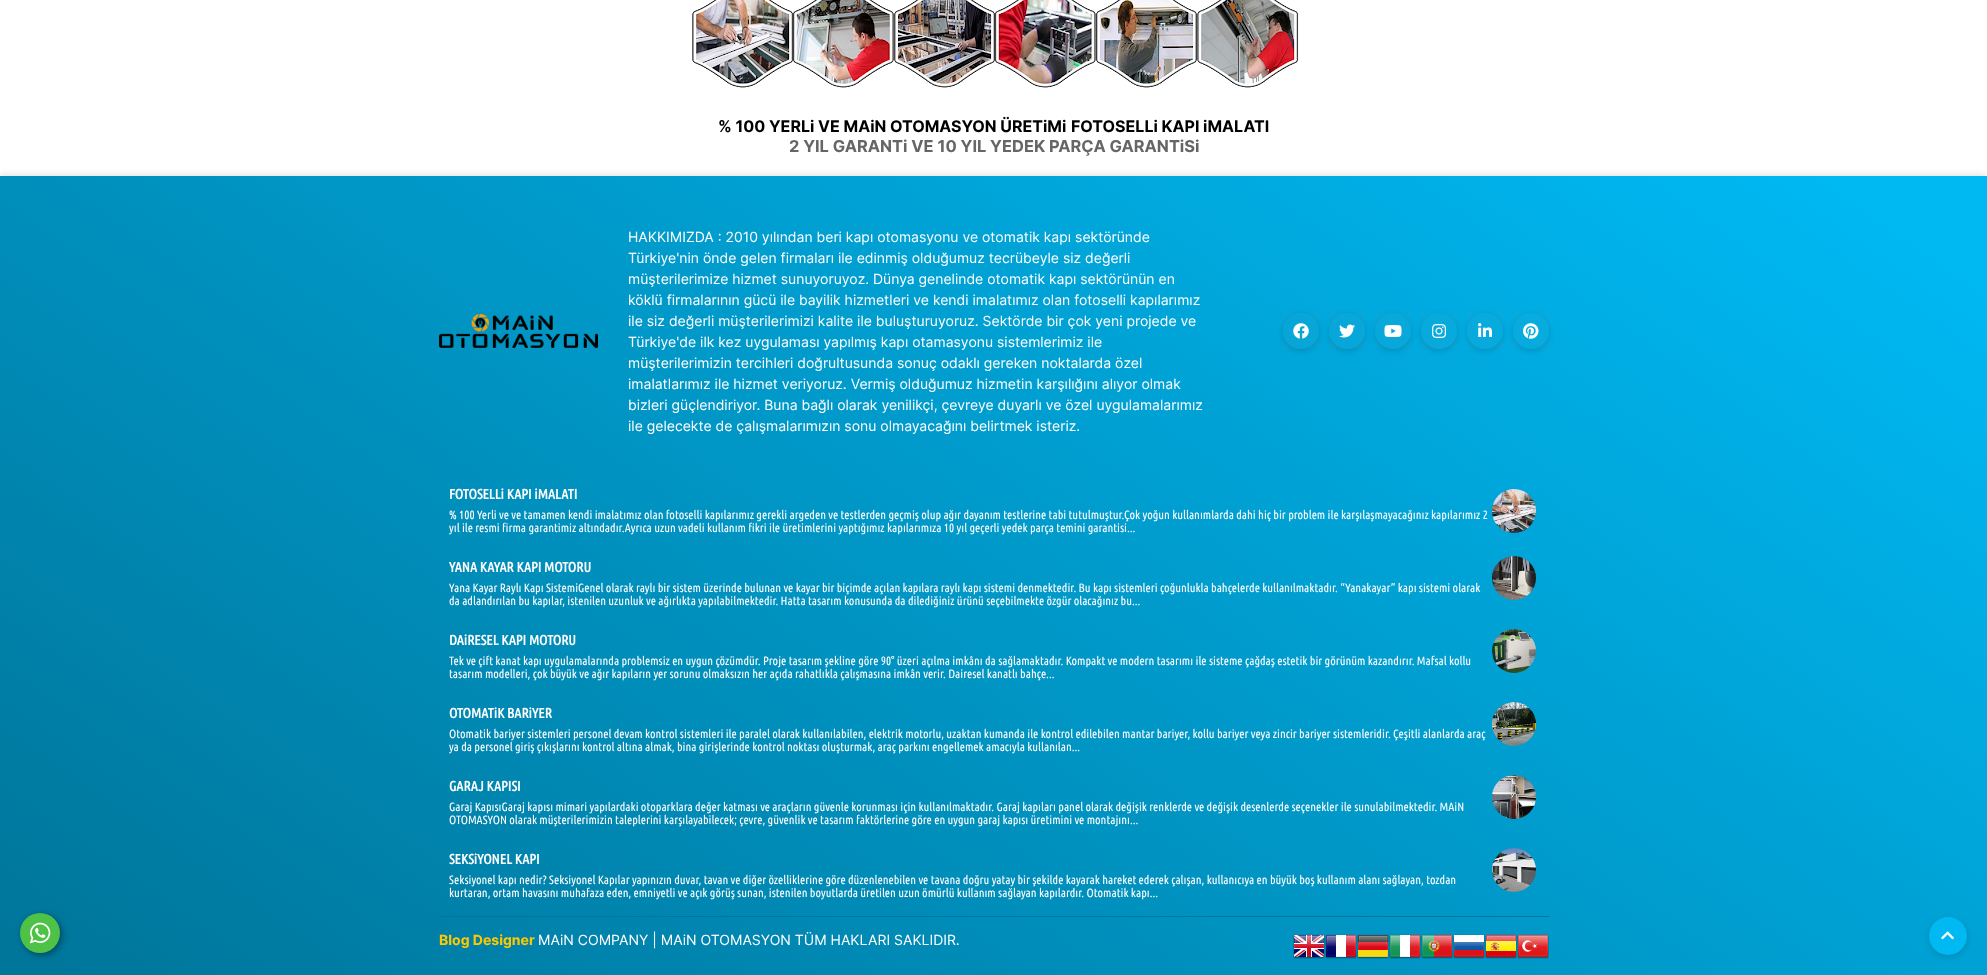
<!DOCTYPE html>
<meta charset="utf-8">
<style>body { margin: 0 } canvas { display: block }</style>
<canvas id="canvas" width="1987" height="975"></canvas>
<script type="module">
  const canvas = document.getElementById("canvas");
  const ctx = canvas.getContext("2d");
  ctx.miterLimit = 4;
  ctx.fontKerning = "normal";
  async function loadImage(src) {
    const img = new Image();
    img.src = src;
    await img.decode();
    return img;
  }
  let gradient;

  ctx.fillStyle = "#ffffff";
  ctx.fillRect(0, 0, 1987, 975);
  ctx.fillStyle = "rgba(0, 0, 0, 0.1)";
  ctx.filter = "blur(3px)";
  ctx.beginPath();
  ctx.rect(0, 174, 1987, 799);
  ctx.fill();
  ctx.filter = "none";
  gradient = ctx.createLinearGradient(1506, -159, 481, 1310);
  gradient.addColorStop(0.05, "#00b8f2");
  gradient.addColorStop(0.98, "#00769b");
  ctx.fillStyle = gradient;
  ctx.fillRect(0, 176, 1987, 799);
  ctx.fillStyle = "rgba(0, 0, 0, 0.4)";
  ctx.filter = "blur(3px)";
  ctx.beginPath();
  ctx.roundRect(22, 915, 40, 40, 20);
  ctx.fill();
  ctx.filter = "none";
  ctx.fillStyle = "#4dc247";
  ctx.beginPath();
  ctx.arc(40, 933, 20, 0, Math.PI * 2);
  ctx.fill();
  ctx.drawImage(await loadImage("img1.png"), 29, 922, 22, 22);
  ctx.drawImage(await loadImage("img2.png"), 692, 0, 607, 88);
  ctx.font = "bold 16px Inter";
  ctx.fillStyle = "#000000";
  ctx.fillText("% 100 YERLi VE MAiN OTOMASYON ÜRETiMi", 718, 132);
  ctx.fillText("FOTOSELLi KAPI iMALATI", 1071, 132);
  ctx.font = "bold 16.4px Inter";
  ctx.fillStyle = "#666666";
  ctx.fillText("2 YIL GARANTi VE 10 YIL YEDEK PARÇA GARANTiSi", 789, 152);
  ctx.fillStyle = "#00769b";
  ctx.fillRect(439, 916, 1110, 1);
  ctx.drawImage(await loadImage("img3.png"), 439, 314, 159, 34);
  ctx.font = "14px Inter";
  ctx.fillStyle = "#ffffff";
  ctx.fillText("HAKKIMIZDA : 2010 yılından beri kapı otomasyonu ve otomatik kapı sektöründe", 628, 242);
  ctx.fillText("Türkiye'nin önde gelen firmaları ile edinmiş olduğumuz tecrübeyle siz değerli", 628, 263);
  ctx.fillText("müşterilerimize hizmet sunuyoruyoz. Dünya genelinde otomatik kapı sektörünün en", 628, 284);
  ctx.fillText("köklü firmalarının gücü ile bayilik hizmetleri ve kendi imalatımız olan fotoselli kapılarımız", 628, 305);
  ctx.fillText("ile siz değerli müşterilerimizi kalite ile buluşturuyoruz. Sektörde bir çok yeni projede ve", 628, 326);
  ctx.fillText("Türkiye'de ilk kez uygulaması yapılmış kapı otamasyonu sistemlerimiz ile", 628, 347);
  ctx.fillText("müşterilerimizin tercihleri doğrultusunda sonuç odaklı gereken noktalarda özel", 628, 368);
  ctx.fillText("imalatlarımız ile hizmet veriyoruz. Vermiş olduğumuz hizmetin karşılığını alıyor olmak", 628, 389);
  ctx.fillText("bizleri güçlendiriyor. Buna bağlı olarak yenilikçi, çevreye duyarlı ve özel uygulamalarımız", 628, 410);
  ctx.fillText("ile gelecekte de çalışmalarımızın sonu olmayacağını belirtmek isteriz.", 628, 431);
  ctx.save();
  ctx.beginPath();
  ctx.moveTo(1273, 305);
  ctx.lineTo(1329, 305);
  ctx.lineTo(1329, 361);
  ctx.lineTo(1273, 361);
  ctx.closePath();
  ctx.moveTo(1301, 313);
  ctx.bezierCurveTo(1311, 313, 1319, 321, 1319, 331);
  ctx.bezierCurveTo(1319, 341, 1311, 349, 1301, 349);
  ctx.bezierCurveTo(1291, 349, 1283, 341, 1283, 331);
  ctx.bezierCurveTo(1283, 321, 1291, 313, 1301, 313);
  ctx.closePath();
  ctx.clip("evenodd");
  ctx.fillStyle = "rgba(0, 0, 0, 0.15)";
  ctx.filter = "blur(3px)";
  ctx.beginPath();
  ctx.roundRect(1283, 315, 36, 36, 18);
  ctx.fill();
  ctx.filter = "none";
  ctx.restore();
  ctx.fillStyle = "rgba(155, 155, 155, 0.05)";
  ctx.fillRect(1283, 313, 36, 36);
  ctx.drawImage(await loadImage("img4.png"), 1293, 323, 16, 16);
  ctx.save();
  ctx.beginPath();
  ctx.moveTo(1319, 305);
  ctx.lineTo(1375, 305);
  ctx.lineTo(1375, 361);
  ctx.lineTo(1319, 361);
  ctx.closePath();
  ctx.moveTo(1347, 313);
  ctx.bezierCurveTo(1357, 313, 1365, 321, 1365, 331);
  ctx.bezierCurveTo(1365, 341, 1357, 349, 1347, 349);
  ctx.bezierCurveTo(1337, 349, 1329, 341, 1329, 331);
  ctx.bezierCurveTo(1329, 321, 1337, 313, 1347, 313);
  ctx.closePath();
  ctx.clip("evenodd");
  ctx.fillStyle = "rgba(0, 0, 0, 0.15)";
  ctx.filter = "blur(3px)";
  ctx.beginPath();
  ctx.roundRect(1329, 315, 36, 36, 18);
  ctx.fill();
  ctx.filter = "none";
  ctx.restore();
  ctx.fillRect(1329, 313, 36, 36);
  ctx.drawImage(await loadImage("img5.png"), 1339, 324, 16, 14);
  ctx.save();
  ctx.beginPath();
  ctx.moveTo(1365, 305);
  ctx.lineTo(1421, 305);
  ctx.lineTo(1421, 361);
  ctx.lineTo(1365, 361);
  ctx.closePath();
  ctx.moveTo(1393, 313);
  ctx.bezierCurveTo(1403, 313, 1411, 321, 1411, 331);
  ctx.bezierCurveTo(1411, 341, 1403, 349, 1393, 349);
  ctx.bezierCurveTo(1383, 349, 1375, 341, 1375, 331);
  ctx.bezierCurveTo(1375, 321, 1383, 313, 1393, 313);
  ctx.closePath();
  ctx.clip("evenodd");
  ctx.fillStyle = "rgba(0, 0, 0, 0.15)";
  ctx.filter = "blur(3px)";
  ctx.beginPath();
  ctx.roundRect(1375, 315, 36, 36, 18);
  ctx.fill();
  ctx.filter = "none";
  ctx.restore();
  ctx.fillRect(1375, 313, 36, 36);
  ctx.drawImage(await loadImage("img6.png"), 1384, 325, 18, 12);
  ctx.save();
  ctx.beginPath();
  ctx.moveTo(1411, 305);
  ctx.lineTo(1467, 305);
  ctx.lineTo(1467, 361);
  ctx.lineTo(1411, 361);
  ctx.closePath();
  ctx.moveTo(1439, 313);
  ctx.bezierCurveTo(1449, 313, 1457, 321, 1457, 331);
  ctx.bezierCurveTo(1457, 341, 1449, 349, 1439, 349);
  ctx.bezierCurveTo(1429, 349, 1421, 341, 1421, 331);
  ctx.bezierCurveTo(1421, 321, 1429, 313, 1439, 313);
  ctx.closePath();
  ctx.clip("evenodd");
  ctx.fillStyle = "rgba(0, 0, 0, 0.15)";
  ctx.filter = "blur(3px)";
  ctx.beginPath();
  ctx.roundRect(1421, 315, 36, 36, 18);
  ctx.fill();
  ctx.filter = "none";
  ctx.restore();
  ctx.fillRect(1421, 313, 36, 36);
  ctx.drawImage(await loadImage("img7.png"), 1432, 324, 15, 14);
  ctx.save();
  ctx.beginPath();
  ctx.moveTo(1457, 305);
  ctx.lineTo(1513, 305);
  ctx.lineTo(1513, 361);
  ctx.lineTo(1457, 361);
  ctx.closePath();
  ctx.moveTo(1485, 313);
  ctx.bezierCurveTo(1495, 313, 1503, 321, 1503, 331);
  ctx.bezierCurveTo(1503, 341, 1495, 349, 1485, 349);
  ctx.bezierCurveTo(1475, 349, 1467, 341, 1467, 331);
  ctx.bezierCurveTo(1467, 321, 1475, 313, 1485, 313);
  ctx.closePath();
  ctx.clip("evenodd");
  ctx.fillStyle = "rgba(0, 0, 0, 0.15)";
  ctx.filter = "blur(3px)";
  ctx.beginPath();
  ctx.roundRect(1467, 315, 36, 36, 18);
  ctx.fill();
  ctx.filter = "none";
  ctx.restore();
  ctx.fillRect(1467, 313, 36, 36);
  ctx.drawImage(await loadImage("img8.png"), 1478, 323, 14, 14);
  ctx.save();
  ctx.beginPath();
  ctx.moveTo(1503, 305);
  ctx.lineTo(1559, 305);
  ctx.lineTo(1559, 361);
  ctx.lineTo(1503, 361);
  ctx.closePath();
  ctx.moveTo(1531, 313);
  ctx.bezierCurveTo(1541, 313, 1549, 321, 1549, 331);
  ctx.bezierCurveTo(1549, 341, 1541, 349, 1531, 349);
  ctx.bezierCurveTo(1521, 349, 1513, 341, 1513, 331);
  ctx.bezierCurveTo(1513, 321, 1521, 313, 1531, 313);
  ctx.closePath();
  ctx.clip("evenodd");
  ctx.fillStyle = "rgba(0, 0, 0, 0.15)";
  ctx.filter = "blur(3px)";
  ctx.beginPath();
  ctx.roundRect(1513, 315, 36, 36, 18);
  ctx.fill();
  ctx.filter = "none";
  ctx.restore();
  ctx.fillRect(1513, 313, 36, 36);
  ctx.drawImage(await loadImage("img9.png"), 1523, 323, 16, 16);
  ctx.font = "bold 14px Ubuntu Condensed";
  ctx.fillStyle = "#ffffff";
  ctx.fillText("FOTOSELLi KAPI iMALATI", 449, 499);
  ctx.drawImage(await loadImage("img10.png"), 1492, 489, 44, 44);
  ctx.font = "12px Ubuntu Condensed";
  ctx.fillText("% 100 Yerli ve ve tamamen kendi imalatımız olan fotoselli kapılarımız gerekli argeden ve testlerden geçmiş olup ağır dayanım testlerine tabi tutulmuştur.Çok yoğun kullanımlarda dahi hiç bir problem ile karşılaşmayacağınız kapılarımız 2", 449, 519);
  ctx.fillText("yıl ile resmi firma garantimiz altındadır.Ayrıca uzun vadeli kullanım fikri ile üretimlerini yaptığımız kapılarımıza 10 yıl geçerli yedek parça temini garantisi...", 449, 532);
  ctx.font = "bold 14px Ubuntu Condensed";
  ctx.fillText("YANA KAYAR KAPI MOTORU", 449, 572);
  ctx.drawImage(await loadImage("img11.png"), 1492, 556, 44, 44);
  ctx.font = "12px Ubuntu Condensed";
  ctx.fillText("Yana Kayar Raylı Kapı SistemiGenel olarak raylı bir sistem üzerinde bulunan ve kayar bir biçimde açılan kapılara raylı kapı sistemi denmektedir. Bu kapı sistemleri çoğunlukla bahçelerde kullanılmaktadır. “Yanakayar” kapı sistemi olarak", 449, 592);
  ctx.fillText("da adlandırılan bu kapılar, istenilen uzunluk ve ağırlıkta yapılabilmektedir. Hatta tasarım konusunda da dilediğiniz ürünü seçebilmekte özgür olacağınız bu...", 449, 605);
  ctx.font = "bold 14px Ubuntu Condensed";
  ctx.fillText("DAiRESEL KAPI MOTORU", 449, 645);
  ctx.drawImage(await loadImage("img12.png"), 1492, 629, 44, 44);
  ctx.font = "12px Ubuntu Condensed";
  ctx.fillText("Tek ve çift kanat kapı uygulamalarında problemsiz en uygun çözümdür. Proje tasarım şekline göre 90° üzeri açılma imkânı da sağlamaktadır. Kompakt ve modern tasarımı ile sisteme çağdaş estetik bir görünüm kazandırır. Mafsal kollu", 449, 665);
  ctx.fillText("tasarım modelleri, çok büyük ve ağır kapıların yer sorunu olmaksızın her açıda rahatlıkla çalışmasına imkân verir. Dairesel kanatlı bahçe...", 449, 678);
  ctx.font = "bold 14px Ubuntu Condensed";
  ctx.fillText("OTOMATiK BARiYER", 449, 718);
  ctx.drawImage(await loadImage("img13.png"), 1492, 702, 44, 44);
  ctx.font = "12px Ubuntu Condensed";
  ctx.fillText("Otomatik bariyer sistemleri personel devam kontrol sistemleri ile paralel olarak kullanılabilen, elektrik motorlu, uzaktan kumanda ile kontrol edilebilen mantar bariyer, kollu bariyer veya zincir bariyer sistemleridir. Çeşitli alanlarda araç", 449, 738);
  ctx.fillText("ya da personel giriş çıkışlarını kontrol altına almak, bina girişlerinde kontrol noktası oluşturmak, araç parkını engellemek amacıyla kullanılan...", 449, 751);
  ctx.font = "bold 14px Ubuntu Condensed";
  ctx.fillText("GARAJ KAPISI", 449, 791);
  ctx.drawImage(await loadImage("img14.png"), 1492, 775, 44, 44);
  ctx.font = "12px Ubuntu Condensed";
  ctx.fillText("Garaj KapısıGaraj kapısı mimari yapılardaki otoparklara değer katması ve araçların güvenle korunması için kullanılmaktadır. Garaj kapıları panel olarak değişik renklerde ve değişik desenlerde seçenekler ile sunulabilmektedir. MAiN", 449, 811);
  ctx.fillText("OTOMASYON olarak müşterilerimizin taleplerini karşılayabilecek; çevre, güvenlik ve tasarım faktörlerine göre en uygun garaj kapısı üretimini ve montajını...", 449, 824);
  ctx.font = "bold 14px Ubuntu Condensed";
  ctx.fillText("SEKSiYONEL KAPI", 449, 864);
  ctx.drawImage(await loadImage("img15.png"), 1492, 848, 44, 44);
  ctx.font = "12px Ubuntu Condensed";
  ctx.fillText("Seksiyonel kapı nedir? Seksiyonel Kapılar yapınızın duvar, tavan ve diğer özelliklerine göre düzenlenebilen ve tavana doğru yatay bir şekilde kayarak hareket ederek çalışan, kullanıcıya en büyük boş kullanım alanı sağlayan, tozdan", 449, 884);
  ctx.fillText("kurtaran, ortam havasını muhafaza eden, emniyetli ve açık görüş sunan, istenilen boyutlarda üretilen uzun ömürlü kullanım sağlayan kapılardır. Otomatik kapı...", 449, 897);
  ctx.font = "bold 14px Inter";
  ctx.fillStyle = "#fec901";
  ctx.fillText("Blog Designer", 439, 945);
  ctx.font = "14px Inter";
  ctx.fillStyle = "#ffffff";
  ctx.fillText("MAiN COMPANY | MAiN OTOMASYON TÜM HAKLARI SAKLIDIR.", 538, 945);
  ctx.drawImage(await loadImage("img16.png"), 1293, 934, 32, 25);
  ctx.drawImage(await loadImage("img17.png"), 1325, 934, 32, 25);
  ctx.drawImage(await loadImage("img18.png"), 1357, 934, 32, 25);
  ctx.drawImage(await loadImage("img19.png"), 1389, 934, 32, 25);
  ctx.drawImage(await loadImage("img20.png"), 1421, 934, 32, 25);
  ctx.drawImage(await loadImage("img21.png"), 1453, 934, 32, 25);
  ctx.drawImage(await loadImage("img22.png"), 1485, 934, 32, 25);
  ctx.drawImage(await loadImage("img23.png"), 1517, 934, 32, 25);
  ctx.fillStyle = "rgba(0, 0, 0, 0.15)";
  ctx.filter = "blur(3px)";
  ctx.beginPath();
  ctx.roundRect(1929, 919, 38, 38, 19);
  ctx.fill();
  ctx.filter = "none";
  ctx.fillStyle = "#00b8f2";
  ctx.beginPath();
  ctx.arc(1948, 936, 19, 0, Math.PI * 2);
  ctx.fill();
  ctx.drawImage(await loadImage("img24.png"), 1941, 931, 13, 9);
</script>
